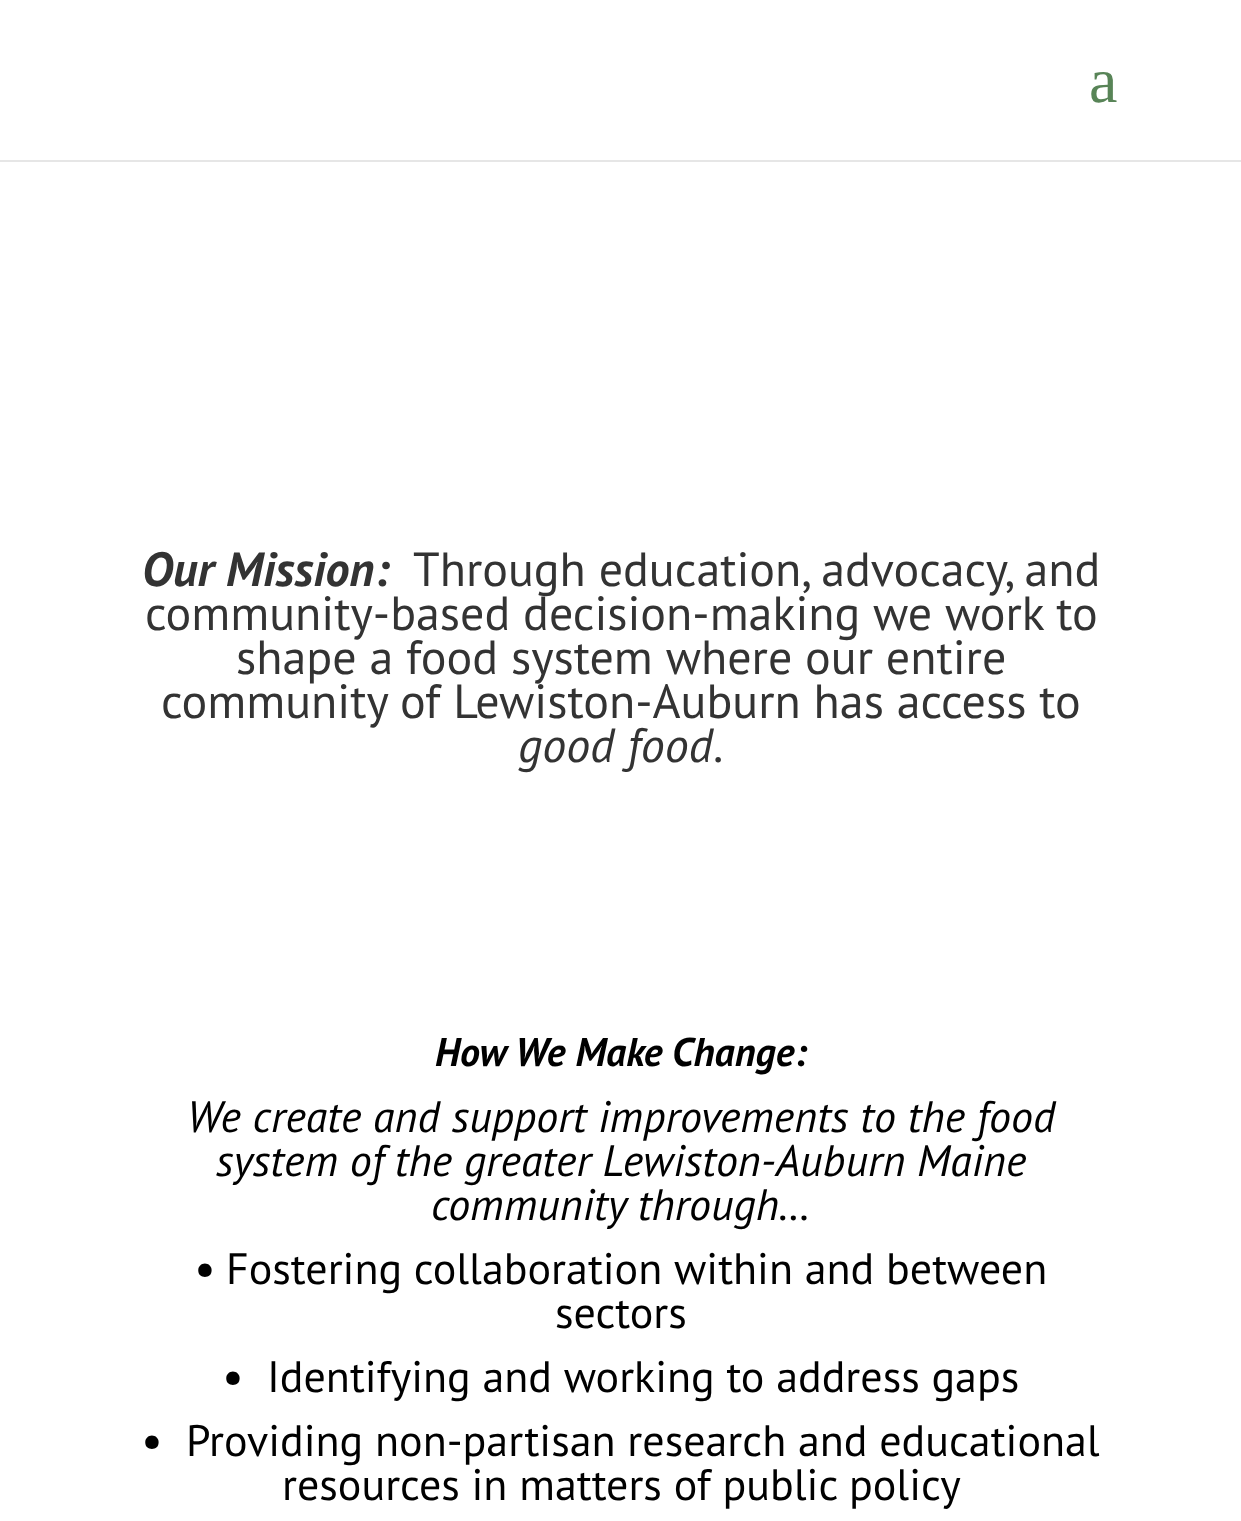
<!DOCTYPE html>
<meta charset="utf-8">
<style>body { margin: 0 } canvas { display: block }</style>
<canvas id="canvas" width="1241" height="1521"></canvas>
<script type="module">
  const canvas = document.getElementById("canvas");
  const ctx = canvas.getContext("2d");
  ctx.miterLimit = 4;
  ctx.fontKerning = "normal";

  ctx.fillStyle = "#ffffff";
  ctx.fillRect(0, 0, 1241, 1521);
  ctx.fillStyle = "#e6e6e6";
  ctx.fillRect(0, 160, 1241, 2);
  ctx.font = "64px Liberation Serif";
  ctx.fillStyle = "#588457";
  ctx.fillText("a", 1089, 102);
  ctx.font = "italic bold 48px PT Sans";
  ctx.fillStyle = "#333333";
  ctx.fillText("Our Mission:", 142, 586);
  ctx.font = "48px PT Sans";
  ctx.fillText("Through education, advocacy, and", 413, 586);
  ctx.fillText("community-based decision-making we work to", 145, 630);
  ctx.fillText("shape a food system where our entire", 236, 674);
  ctx.fillText("community of Lewiston-Auburn has access to", 161, 718);
  ctx.font = "italic 48px PT Sans";
  ctx.fillText("good food", 518, 762);
  ctx.font = "48px PT Sans";
  ctx.fillText(".", 713, 762);
  ctx.font = "italic bold 40px PT Sans";
  ctx.fillStyle = "#000000";
  ctx.fillText("How We Make Change:", 435, 1066);
  ctx.font = "italic 44px PT Sans";
  ctx.fillText("We create and support improvements to the food", 187, 1132);
  ctx.fillText("system of the greater Lewiston-Auburn Maine", 216, 1176);
  ctx.fillText("community through…", 431, 1220);
  ctx.font = "bold 44px PT Sans";
  ctx.fillText("•", 195, 1284);
  ctx.font = "44px PT Sans";
  ctx.fillText("Fostering collaboration within and between", 226, 1284);
  ctx.fillText("sectors", 555, 1328);
  ctx.font = "bold 44px PT Sans";
  ctx.fillText("•", 223, 1392);
  ctx.font = "44px PT Sans";
  ctx.fillText("Identifying and working to address gaps", 267, 1392);
  ctx.font = "bold 44px PT Sans";
  ctx.fillText("•", 142, 1456);
  ctx.font = "44px PT Sans";
  ctx.fillText("Providing non-partisan research and educational", 186, 1456);
  ctx.fillText("resources in matters of public policy", 282, 1500);
</script>
